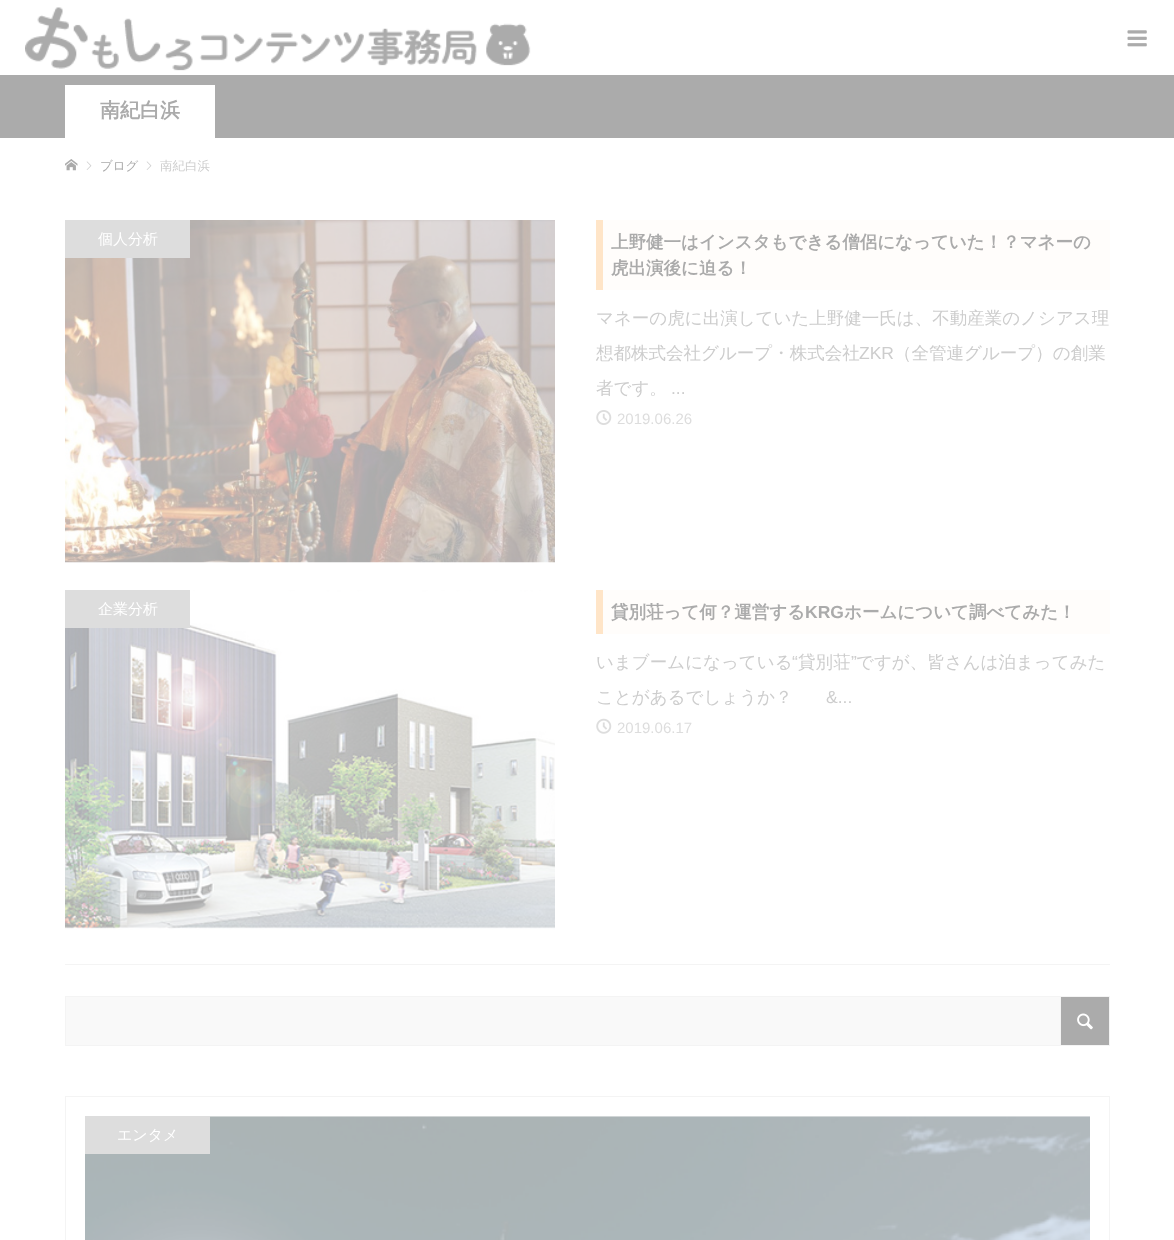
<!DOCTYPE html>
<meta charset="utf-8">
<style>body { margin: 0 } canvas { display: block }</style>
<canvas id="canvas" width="1174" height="1240"></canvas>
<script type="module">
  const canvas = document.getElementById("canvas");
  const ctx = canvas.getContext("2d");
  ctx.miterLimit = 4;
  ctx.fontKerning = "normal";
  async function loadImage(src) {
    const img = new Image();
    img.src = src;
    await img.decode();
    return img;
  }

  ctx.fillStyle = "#ffffff";
  ctx.fillRect(0, 0, 1174, 1240);
  ctx.drawImage(await loadImage("img1.png"), 25, 7, 506, 64);
  ctx.drawImage(await loadImage("img2.png"), 1127, 30, 20, 17);
  ctx.fillStyle = "#ababab";
  ctx.fillRect(0, 75, 1174, 63);
  ctx.fillStyle = "#ffffff";
  ctx.fillRect(65, 85, 150, 53);
  ctx.font = "bold 20px WenQuanYi Zen Hei";
  ctx.fillStyle = "#ababab";
  ctx.fillText("南紀白浜", 100, 117);
  ctx.drawImage(await loadImage("img3.png"), 65, 159, 13, 12);
  ctx.drawImage(await loadImage("img4.png"), 86, 161, 6, 9);
  ctx.font = "500 12.5px WenQuanYi Zen Hei";
  ctx.fillText("ブログ", 100, 170);
  ctx.drawImage(await loadImage("img4.png"), 146, 161, 6, 9);
  ctx.fillStyle = "#cdcdcd";
  ctx.fillText("南紀白浜", 160, 170);
  ctx.drawImage(await loadImage("img5.png"), 65, 220, 490, 343);
  ctx.fillStyle = "#dddddd";
  ctx.fillRect(65, 220, 125, 38);
  ctx.font = "500 15px WenQuanYi Zen Hei";
  ctx.fillStyle = "#ffffff";
  ctx.fillText("個人分析", 98, 244);
  ctx.fillStyle = "#fffdfb";
  ctx.fillRect(603, 220, 507, 70);
  ctx.fillStyle = "#ffe5c8";
  ctx.fillRect(596, 220, 7, 70);
  ctx.font = "bold 17.5px WenQuanYi Zen Hei";
  ctx.fillStyle = "#ababab";
  ctx.fillText("上野健一はインスタもできる僧侶になっていた！？マネーの", 611, 248);
  ctx.fillText("虎出演後に迫る！", 611, 274);
  ctx.font = "500 17.5px WenQuanYi Zen Hei";
  ctx.fillStyle = "#cdcdcd";
  ctx.fillText("マネーの虎に出演していた上野健一氏は、不動産業のノシアス理", 596, 324);
  ctx.fillText("想都株式会社グループ・株式会社", 596, 359);
  ctx.font = "17.5px Liberation Sans";
  ctx.fillText("ZKR", 859, 359);
  ctx.font = "500 17.5px WenQuanYi Zen Hei";
  ctx.fillText("（全管連グループ）の創業", 894, 359);
  ctx.fillText("者です。", 596, 394);
  ctx.font = "17.5px Liberation Sans";
  ctx.fillText("...", 671, 394);
  ctx.drawImage(await loadImage("img6.png"), 596, 410, 16, 15);
  ctx.font = "15px Liberation Sans";
  ctx.fillStyle = "#dddddd";
  ctx.fillText("2019.06.26", 617, 424);
  ctx.drawImage(await loadImage("img7.png"), 65, 590, 490, 340);
  ctx.fillRect(65, 590, 125, 38);
  ctx.font = "500 15px WenQuanYi Zen Hei";
  ctx.fillStyle = "#ffffff";
  ctx.fillText("企業分析", 98, 614);
  ctx.fillStyle = "#fffdfb";
  ctx.fillRect(603, 590, 507, 44);
  ctx.fillStyle = "#ffe5c8";
  ctx.fillRect(596, 590, 7, 44);
  ctx.font = "bold 17.5px WenQuanYi Zen Hei";
  ctx.fillStyle = "#ababab";
  ctx.fillText("貸別荘って何？運営する", 611, 618);
  ctx.font = "bold 17.5px Liberation Sans";
  ctx.fillText("KRG", 805, 618);
  ctx.font = "bold 17.5px WenQuanYi Zen Hei";
  ctx.fillText("ホームについて調べてみた！", 844, 618);
  ctx.font = "500 17.5px WenQuanYi Zen Hei";
  ctx.fillStyle = "#cdcdcd";
  ctx.fillText("いまブームになっている", 596, 668);
  ctx.font = "17.5px Liberation Sans";
  ctx.fillText("“", 792, 668);
  ctx.font = "500 17.5px WenQuanYi Zen Hei";
  ctx.fillText("貸別荘", 798, 668);
  ctx.font = "17.5px Liberation Sans";
  ctx.fillText("”", 851, 668);
  ctx.font = "500 17.5px WenQuanYi Zen Hei";
  ctx.fillText("ですが、皆さんは泊まってみた", 856, 668);
  ctx.fillText("ことがあるでしょうか？", 596, 703);
  ctx.font = "17.5px Liberation Sans";
  ctx.fillText("&...", 826, 703);
  ctx.drawImage(await loadImage("img8.png"), 596, 718, 16, 16);
  ctx.font = "15px Liberation Sans";
  ctx.fillStyle = "#dddddd";
  ctx.fillText("2019.06.17", 617, 733);
  ctx.fillStyle = "#f4f4f4";
  ctx.fillRect(65, 964, 1045, 1);
  ctx.fillStyle = "#f9f9f9";
  ctx.fillRect(66, 997, 994, 48);
  ctx.fillStyle = "#f4f4f4";
  ctx.fillRect(65, 996, 995, 1);
  ctx.fillRect(65, 1045, 995, 1);
  ctx.fillRect(65, 996, 1, 50);
  ctx.fillStyle = "#ababab";
  ctx.fillRect(1061, 997, 48, 48);
  ctx.drawImage(await loadImage("img9.png"), 1077, 1013, 16, 17);
  ctx.strokeStyle = "#f4f4f4";
  ctx.strokeRect(1060.5, 996.5, 49, 49);
  ctx.strokeRect(65.5, 1096.5, 1044, 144);
  ctx.drawImage(await loadImage("img10.png"), 85, 1116, 1005, 124);
  ctx.fillStyle = "#dddddd";
  ctx.fillRect(85, 1116, 125, 38);
  ctx.font = "500 15px WenQuanYi Zen Hei";
  ctx.fillStyle = "#ffffff";
  ctx.fillText("エンタメ", 117, 1140);
</script>
